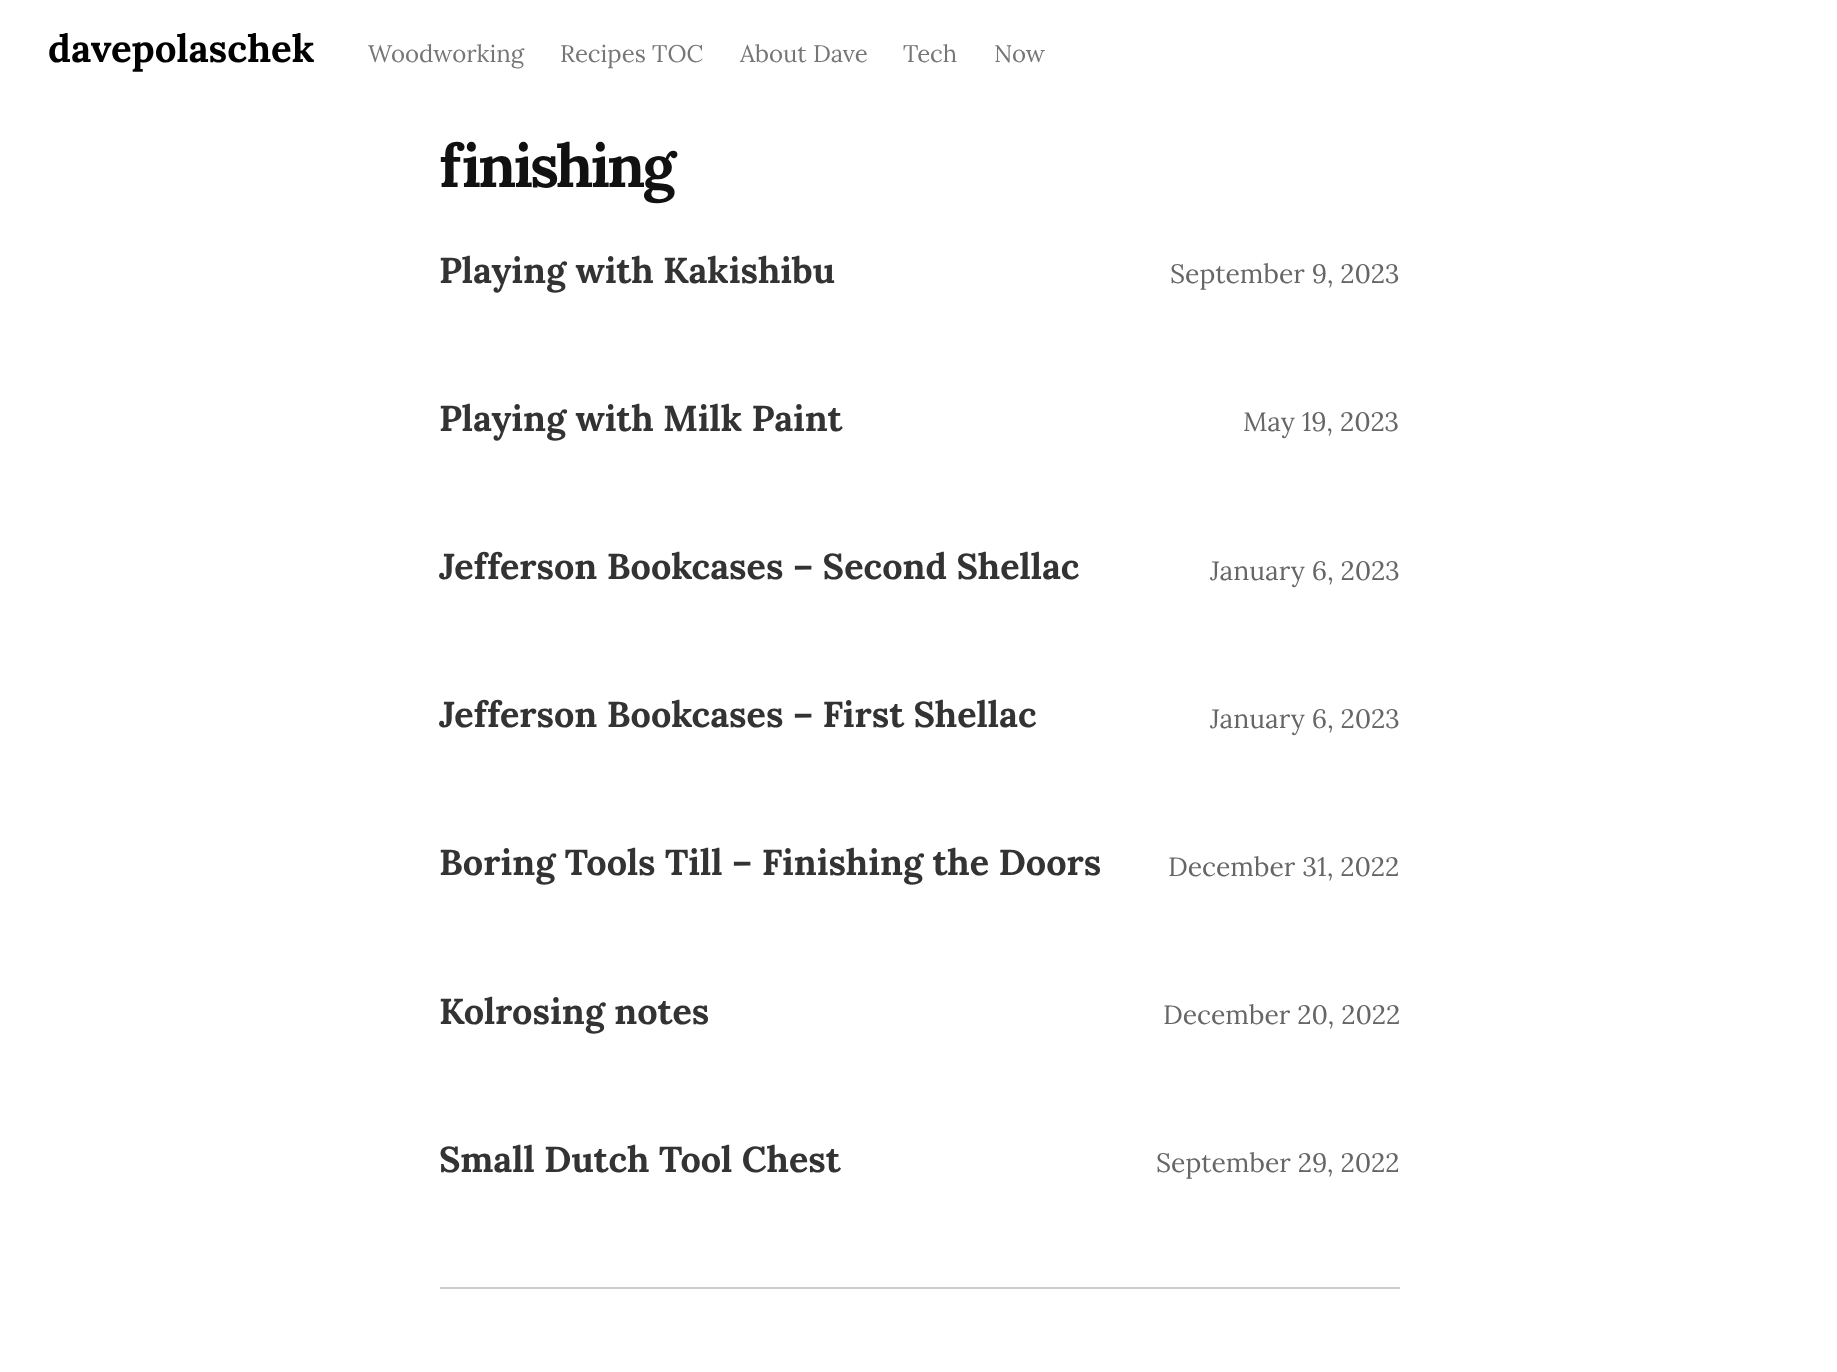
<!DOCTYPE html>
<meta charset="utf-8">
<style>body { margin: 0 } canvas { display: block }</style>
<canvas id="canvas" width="1837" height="1372"></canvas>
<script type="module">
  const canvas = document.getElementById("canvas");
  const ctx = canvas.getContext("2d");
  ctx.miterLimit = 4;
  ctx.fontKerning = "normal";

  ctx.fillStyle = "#ffffff";
  ctx.fillRect(0, 0, 1837, 1372);
  ctx.font = "bold 38.5px Lora";
  ctx.fillStyle = "#000000";
  ctx.fillText("davepolaschek", 48, 62);
  ctx.font = "24px Lora";
  ctx.fillStyle = "#767676";
  ctx.fillText("Woodworking", 368, 62);
  ctx.fillText("Recipes TOC", 560, 62);
  ctx.fillText("About Dave", 740, 62);
  ctx.fillText("Tech", 903, 62);
  ctx.fillText("Now", 994, 62);
  ctx.letterSpacing = "-3px";
  ctx.font = "bold 60px Lora";
  ctx.fillStyle = "#111111";
  ctx.fillText("finishing", 439, 187);
  ctx.letterSpacing = "0px";
  ctx.font = "bold 36px Lora";
  ctx.fillStyle = "#333333";
  ctx.fillText("Playing with Kakishibu", 439, 283);
  ctx.font = "26.5px Lora";
  ctx.fillStyle = "#666666";
  ctx.fillText("September 9, 2023", 1170, 283);
  ctx.font = "bold 36px Lora";
  ctx.fillStyle = "#333333";
  ctx.fillText("Playing with Milk Paint", 439, 431);
  ctx.font = "26.5px Lora";
  ctx.fillStyle = "#666666";
  ctx.fillText("May 19, 2023", 1243, 431);
  ctx.font = "bold 36px Lora";
  ctx.fillStyle = "#333333";
  ctx.fillText("Jefferson Bookcases – Second Shellac", 439, 579);
  ctx.font = "26.5px Lora";
  ctx.fillStyle = "#666666";
  ctx.fillText("January 6, 2023", 1210, 580);
  ctx.font = "bold 36px Lora";
  ctx.fillStyle = "#333333";
  ctx.fillText("Jefferson Bookcases – First Shellac", 439, 727);
  ctx.font = "26.5px Lora";
  ctx.fillStyle = "#666666";
  ctx.fillText("January 6, 2023", 1210, 728);
  ctx.font = "bold 36px Lora";
  ctx.fillStyle = "#333333";
  ctx.fillText("Boring Tools Till – Finishing the Doors", 439, 875);
  ctx.font = "26.5px Lora";
  ctx.fillStyle = "#666666";
  ctx.fillText("December 31, 2022", 1168, 876);
  ctx.font = "bold 36px Lora";
  ctx.fillStyle = "#333333";
  ctx.fillText("Kolrosing notes", 439, 1024);
  ctx.font = "26.5px Lora";
  ctx.fillStyle = "#666666";
  ctx.fillText("December 20, 2022", 1163, 1024);
  ctx.font = "bold 36px Lora";
  ctx.fillStyle = "#333333";
  ctx.fillText("Small Dutch Tool Chest", 439, 1172);
  ctx.font = "26.5px Lora";
  ctx.fillStyle = "#666666";
  ctx.fillText("September 29, 2022", 1156, 1172);
  ctx.fillStyle = "#cccccc";
  ctx.fillRect(440, 1287, 960, 2);
</script>
